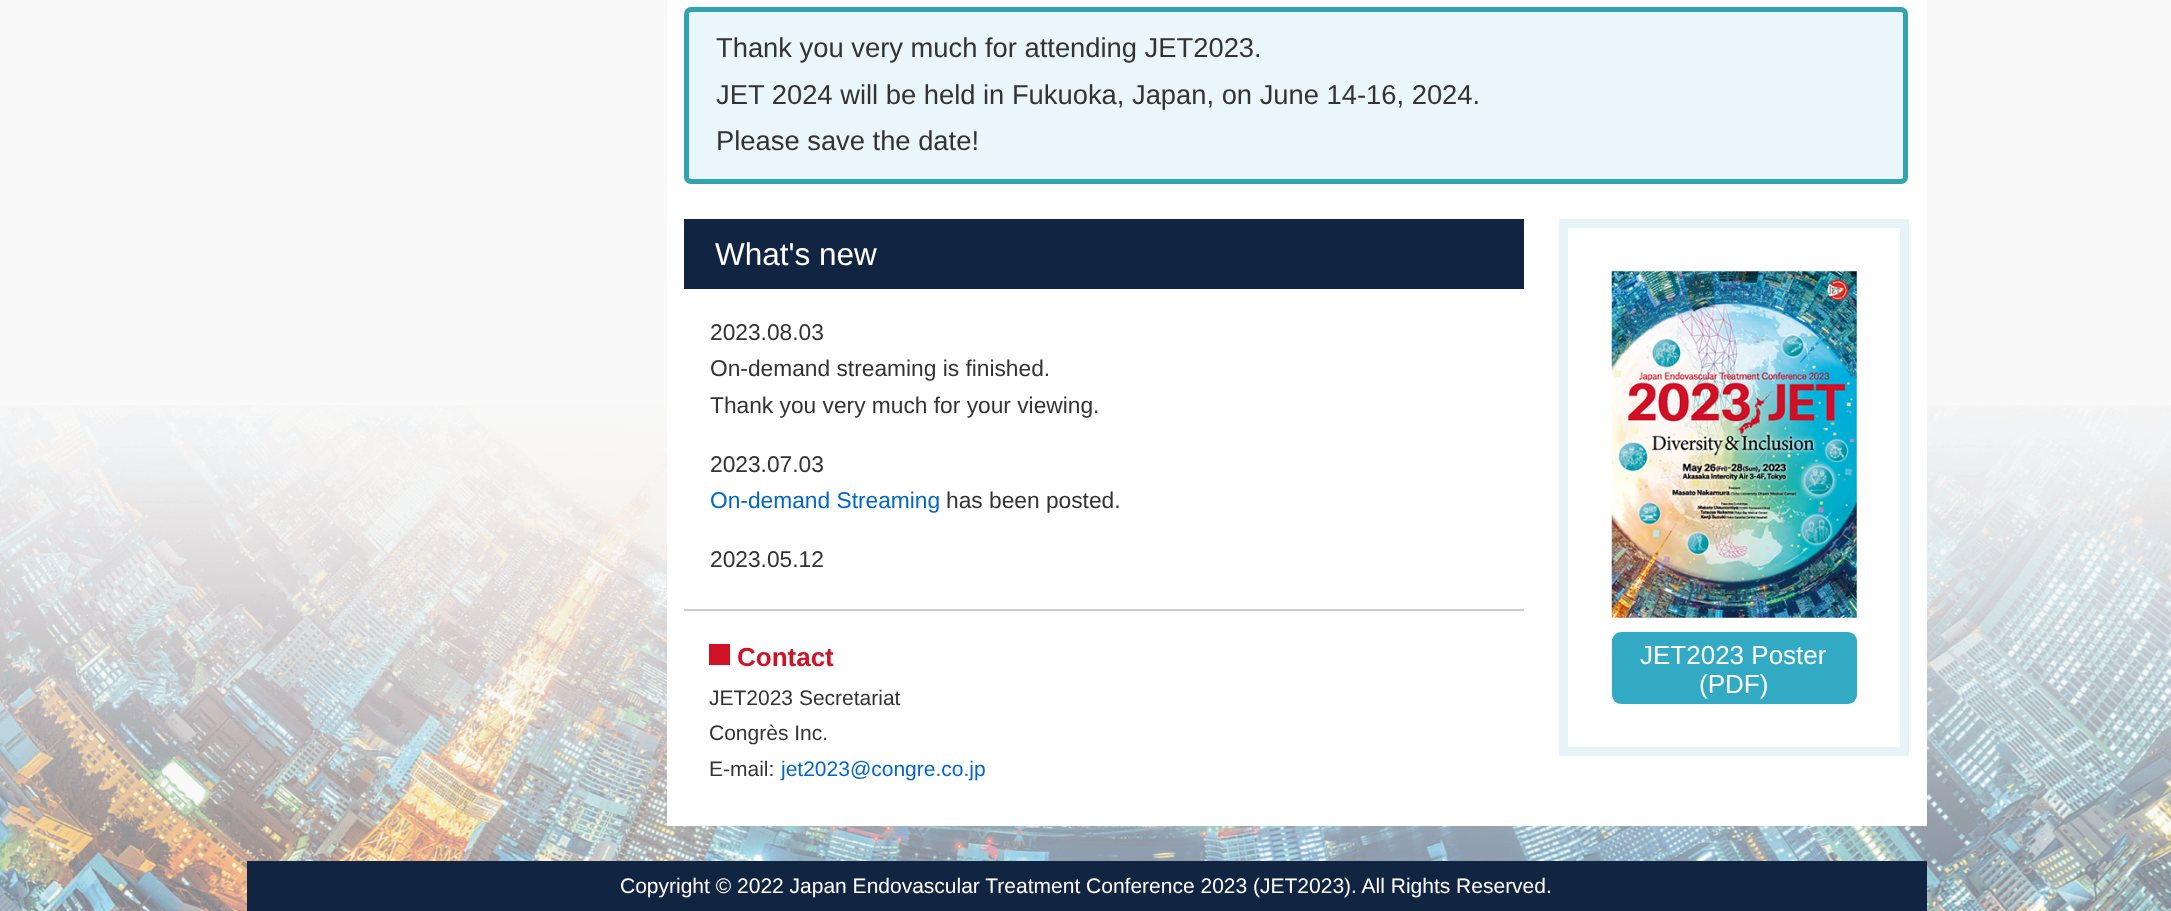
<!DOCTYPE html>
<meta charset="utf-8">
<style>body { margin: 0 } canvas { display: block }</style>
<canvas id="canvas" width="2171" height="911"></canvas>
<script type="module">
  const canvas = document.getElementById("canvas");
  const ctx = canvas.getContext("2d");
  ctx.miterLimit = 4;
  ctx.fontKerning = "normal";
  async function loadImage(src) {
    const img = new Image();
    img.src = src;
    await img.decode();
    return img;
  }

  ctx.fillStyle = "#f9f9f9";
  ctx.fillRect(0, 0, 2171, 911);
  ctx.drawImage(await loadImage("img1.png"), 0, 405, 2171, 506);
  ctx.fillStyle = "#ffffff";
  ctx.fillRect(667, 0, 1260, 826);
  ctx.fillStyle = "#eaf6f9";
  ctx.beginPath();
  ctx.roundRect(686.5, 9.5, 1219, 172, 4.5);
  ctx.fill();
  ctx.strokeStyle = "#31a4b0";
  ctx.lineWidth = 5;
  ctx.stroke();
  ctx.font = "27.35px Liberation Sans";
  ctx.fillStyle = "#333333";
  ctx.fillText("Thank you very much for attending JET2023.", 716, 57);
  ctx.fillText("JET 2024 will be held in Fukuoka, Japan, on June 14-16, 2024.", 716, 104);
  ctx.fillText("Please save the date!", 716, 150);
  ctx.fillStyle = "#112543";
  ctx.fillRect(684, 219, 840, 70);
  ctx.font = "31.5px Liberation Sans";
  ctx.fillStyle = "#ffffff";
  ctx.fillText("What's new", 715, 265);
  ctx.font = "22.75px Liberation Sans";
  ctx.fillStyle = "#333333";
  ctx.fillText("2023.08.03", 710, 340);
  ctx.fillText("On-demand streaming is finished.", 710, 376);
  ctx.fillText("Thank you very much for your viewing.", 710, 413);
  ctx.fillText("2023.07.03", 710, 472);
  ctx.fillStyle = "#0066cc";
  ctx.fillText("On-demand Streaming", 710, 508);
  ctx.fillStyle = "#333333";
  ctx.fillText("has been posted.", 946, 508);
  ctx.fillText("2023.05.12", 710, 567);
  ctx.fillStyle = "#cccccc";
  ctx.fillRect(684, 609, 840, 2);
  ctx.fillStyle = "#d01126";
  ctx.fillRect(709, 644, 21, 21);
  ctx.font = "bold 26px Liberation Sans";
  ctx.fillText("Contact", 737, 666);
  ctx.font = "21px Liberation Sans";
  ctx.fillStyle = "#333333";
  ctx.fillText("JET2023 Secretariat", 709, 705);
  ctx.fillText("Congrès Inc.", 709, 740);
  ctx.fillText("E-mail:", 709, 776);
  ctx.fillStyle = "#0066cc";
  ctx.fillText("jet2023@congre.co.jp", 781, 776);
  ctx.strokeStyle = "#e6f3f8";
  ctx.lineWidth = 9;
  ctx.strokeRect(1563.5, 223.5, 341, 528);
  ctx.drawImage(await loadImage("img2.png"), 1611, 271, 246, 347);
  ctx.fillStyle = "#33aac3";
  ctx.beginPath();
  ctx.roundRect(1612, 632, 245, 72, 9);
  ctx.fill();
  ctx.font = "26px Liberation Sans";
  ctx.fillStyle = "#ffffff";
  ctx.fillText("JET2023 Poster", 1640, 664);
  ctx.fillText("(PDF)", 1699, 693);
  ctx.fillStyle = "#112543";
  ctx.fillRect(247, 861, 1680, 50);
  ctx.font = "21px Liberation Sans";
  ctx.fillStyle = "#ffffff";
  ctx.fillText("Copyright © 2022 Japan Endovascular Treatment Conference 2023 (JET2023). All Rights Reserved.", 620, 893);
</script>
